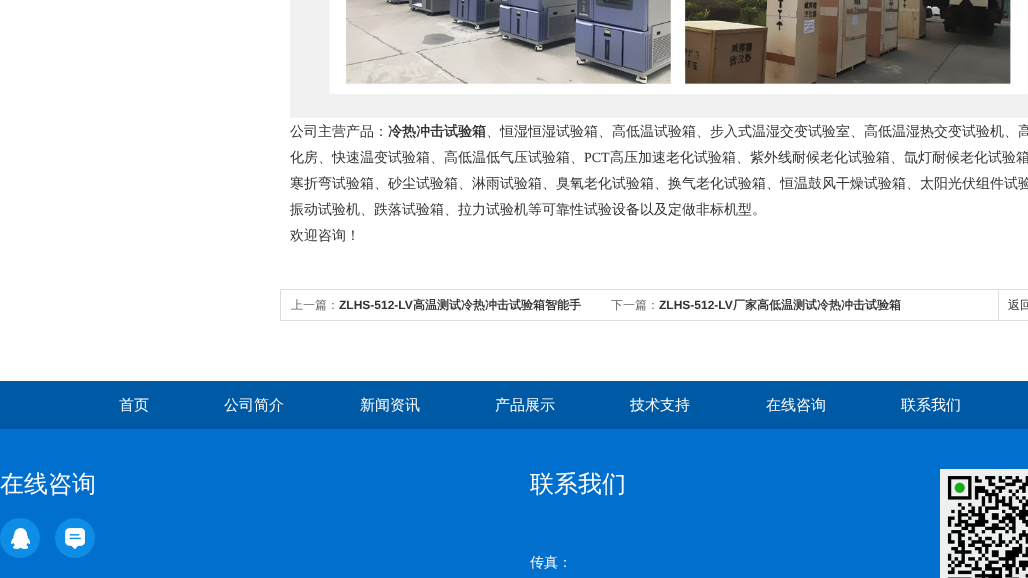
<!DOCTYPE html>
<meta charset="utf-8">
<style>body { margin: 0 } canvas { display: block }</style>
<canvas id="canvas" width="1028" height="578"></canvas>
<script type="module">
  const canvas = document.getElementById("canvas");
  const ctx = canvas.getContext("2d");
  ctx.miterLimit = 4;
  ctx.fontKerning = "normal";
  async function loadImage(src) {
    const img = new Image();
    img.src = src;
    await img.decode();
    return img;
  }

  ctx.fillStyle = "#ffffff";
  ctx.fillRect(0, 0, 1028, 578);
  ctx.drawImage(await loadImage("img1.png"), 290, 0, 738, 118);
  ctx.font = "500 14px WenQuanYi Zen Hei";
  ctx.fillStyle = "#333333";
  ctx.fillText("公司主营产品：", 290, 136);
  ctx.font = "bold 14px WenQuanYi Zen Hei";
  ctx.fillText("冷热冲击试验箱", 388, 136);
  ctx.font = "500 14px WenQuanYi Zen Hei";
  ctx.fillText("、恒湿恒湿试验箱、高低温试验箱、步入式温湿交变试验室、高低温湿热交变试验机、高", 486, 136);
  ctx.fillText("化房、快速温变试验箱、高低温低气压试验箱、", 290, 162);
  ctx.font = "14px Liberation Serif";
  ctx.fillText("PCT", 584, 162);
  ctx.font = "500 14px WenQuanYi Zen Hei";
  ctx.fillText("高压加速老化试验箱、紫外线耐候老化试验箱、氙灯耐候老化试验箱", 610, 162);
  ctx.fillText("寒折弯试验箱、砂尘试验箱、淋雨试验箱、臭氧老化试验箱、换气老化试验箱、恒温鼓风干燥试验箱、太阳光伏组件试验", 290, 188);
  ctx.fillText("振动试验机、跌落试验箱、拉力试验机等可靠性试验设备以及定做非标机型。", 290, 214);
  ctx.fillText("欢迎咨询！", 290, 240);
  ctx.strokeStyle = "#dddddd";
  ctx.strokeRect(280.5, 289.5, 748, 31);
  ctx.font = "500 12px WenQuanYi Zen Hei";
  ctx.fillStyle = "#666666";
  ctx.fillText("上一篇：", 291, 309);
  ctx.font = "bold 12px Liberation Sans";
  ctx.fillStyle = "#333333";
  ctx.fillText("ZLHS-512-LV", 339, 309);
  ctx.font = "bold 12px WenQuanYi Zen Hei";
  ctx.fillText("高温测试冷热冲击试验箱智能手", 413, 309);
  ctx.font = "500 12px WenQuanYi Zen Hei";
  ctx.fillStyle = "#666666";
  ctx.fillText("下一篇：", 611, 309);
  ctx.font = "bold 12px Liberation Sans";
  ctx.fillStyle = "#333333";
  ctx.fillText("ZLHS-512-LV", 659, 309);
  ctx.font = "bold 12px WenQuanYi Zen Hei";
  ctx.fillText("厂家高低温测试冷热冲击试验箱", 733, 309);
  ctx.fillStyle = "#dddddd";
  ctx.fillRect(998, 290, 1, 30);
  ctx.font = "500 12px WenQuanYi Zen Hei";
  ctx.fillStyle = "#333333";
  ctx.fillText("返回", 1008, 309);
  ctx.fillStyle = "#006fce";
  ctx.fillRect(0, 429, 1028, 149);
  ctx.fillStyle = "#0059a5";
  ctx.fillRect(0, 381, 1028, 48);
  ctx.font = "500 15px WenQuanYi Zen Hei";
  ctx.fillStyle = "#ffffff";
  ctx.fillText("首页", 119, 410);
  ctx.fillText("公司简介", 224, 410);
  ctx.fillText("新闻资讯", 360, 410);
  ctx.fillText("产品展示", 495, 410);
  ctx.fillText("技术支持", 630, 410);
  ctx.fillText("在线咨询", 766, 410);
  ctx.fillText("联系我们", 901, 410);
  ctx.font = "500 24px WenQuanYi Zen Hei";
  ctx.fillText("在线咨询", 0, 492);
  ctx.fillStyle = "#0e8de6";
  ctx.beginPath();
  ctx.arc(20, 538, 20, 0, Math.PI * 2);
  ctx.fill();
  ctx.drawImage(await loadImage("img2.png"), 11, 528, 19, 21);
  ctx.beginPath();
  ctx.arc(75, 538, 20, 0, Math.PI * 2);
  ctx.fill();
  ctx.drawImage(await loadImage("img3.png"), 65, 528, 20, 21);
  ctx.fillStyle = "#ffffff";
  ctx.fillText("联系我们", 530, 492);
  ctx.font = "500 14px WenQuanYi Zen Hei";
  ctx.fillText("传真：", 530, 567);
  ctx.drawImage(await loadImage("img4.png"), 940, 469, 88, 109);
</script>
